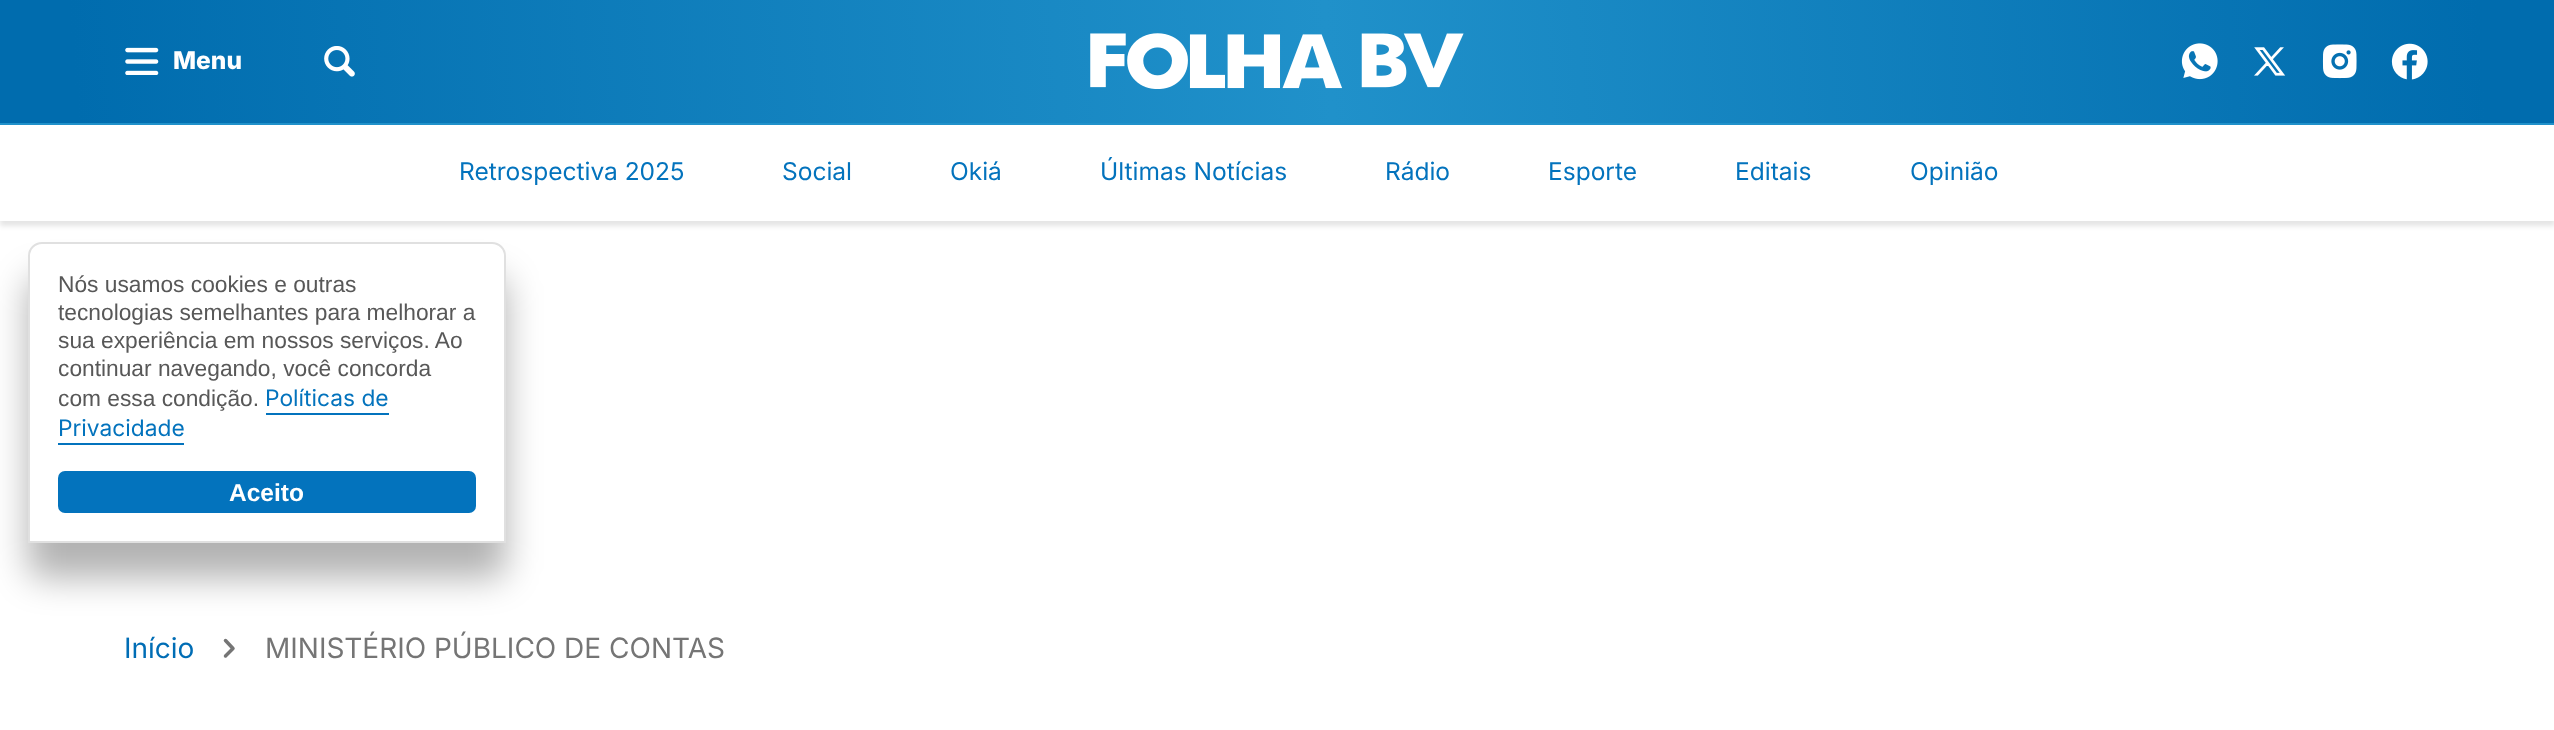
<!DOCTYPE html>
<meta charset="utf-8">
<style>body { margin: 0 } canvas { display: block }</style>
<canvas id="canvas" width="2554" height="730"></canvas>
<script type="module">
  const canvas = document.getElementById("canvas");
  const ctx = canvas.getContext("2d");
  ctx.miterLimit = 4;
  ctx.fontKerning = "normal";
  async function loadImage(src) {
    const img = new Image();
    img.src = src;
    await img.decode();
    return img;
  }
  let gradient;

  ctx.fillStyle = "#ffffff";
  ctx.fillRect(0, 0, 2554, 730);
  ctx.fillStyle = "rgba(0, 0, 0, 0.1)";
  ctx.filter = "blur(2.5px)";
  ctx.beginPath();
  ctx.rect(0, 5, 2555, 221);
  ctx.fill();
  ctx.filter = "none";
  ctx.fillStyle = "#ffffff";
  ctx.fillRect(0, 125, 2554, 96);
  gradient = ctx.createLinearGradient(2553, -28, 2, 150);
  gradient.addColorStop(0.03, "#006cae");
  gradient.addColorStop(0.48, "#2091ca");
  gradient.addColorStop(0.97, "#006cae");
  ctx.fillStyle = gradient;
  ctx.fillRect(0, 0, 2554, 123);
  ctx.drawImage(await loadImage("img1.png"), 125, 47, 34, 28);
  ctx.font = "800 24.5px Inter";
  ctx.fillStyle = "#ffffff";
  ctx.fillText("Menu", 173, 69);
  ctx.drawImage(await loadImage("img2.png"), 324, 46, 31, 31);
  ctx.drawImage(await loadImage("img3.png"), 1090, 33, 374, 56);
  ctx.drawImage(await loadImage("img4.png"), 2181, 43, 37, 37);
  ctx.drawImage(await loadImage("img5.png"), 2254, 47, 32, 29);
  ctx.drawImage(await loadImage("img6.png"), 2322, 44, 35, 35);
  ctx.drawImage(await loadImage("img7.png"), 2391, 43, 37, 37);
  ctx.fillStyle = "#2091ca";
  ctx.fillRect(0, 123, 2554, 2);
  ctx.font = "24.5px Inter";
  ctx.fillStyle = "#0373bd";
  ctx.fillText("Retrospectiva 2025", 459, 180);
  ctx.fillText("Social", 782, 180);
  ctx.fillText("Okiá", 950, 180);
  ctx.fillText("Últimas Notícias", 1100, 180);
  ctx.fillText("Rádio", 1385, 180);
  ctx.fillText("Esporte", 1548, 180);
  ctx.fillText("Editais", 1735, 180);
  ctx.fillText("Opinião", 1910, 180);
  ctx.fillStyle = "rgba(0, 0, 0, 0.3)";
  ctx.filter = "blur(17.5px)";
  ctx.beginPath();
  ctx.roundRect(28, 277, 478, 301, 14);
  ctx.fill();
  ctx.filter = "none";
  ctx.fillStyle = "#ffffff";
  ctx.beginPath();
  ctx.roundRect(29, 243, 476, 299, [13, 13, 0, 0]);
  ctx.fill();
  ctx.strokeStyle = "#e0e0e0";
  ctx.lineWidth = 2;
  ctx.stroke();
  ctx.font = "22.75px Liberation Sans";
  ctx.fillStyle = "#585858";
  ctx.fillText("Nós usamos cookies e outras", 58, 292);
  ctx.fillText("tecnologias semelhantes para melhorar a", 58, 320);
  ctx.fillText("sua experiência em nossos serviços. Ao", 58, 348);
  ctx.fillText("continuar navegando, você concorda", 58, 376);
  ctx.fillText("com essa condição.", 58, 406);
  ctx.font = "22.75px Inter";
  ctx.fillStyle = "#0373bd";
  ctx.fillText("Políticas de", 265, 406);
  ctx.fillRect(266, 413, 123, 2);
  ctx.fillText("Privacidade", 58, 436);
  ctx.fillRect(58, 443, 126, 2);
  ctx.beginPath();
  ctx.roundRect(58, 471, 418, 42, 7);
  ctx.fill();
  ctx.font = "bold 24.5px Liberation Sans";
  ctx.fillStyle = "#ffffff";
  ctx.fillText("Aceito", 229, 501);
  ctx.font = "28px Inter";
  ctx.fillStyle = "#006db5";
  ctx.fillText("Início", 124, 658);
  ctx.beginPath();
  ctx.moveTo(225.5, 656);
  ctx.lineTo(233, 648.5);
  ctx.lineTo(225.5, 640.5);
  ctx.strokeStyle = "#757575";
  ctx.lineWidth = 3.5;
  ctx.lineCap = "round";
  ctx.lineJoin = "round";
  ctx.stroke();
  ctx.fillStyle = "#757575";
  ctx.fillText("MINISTÉRIO PÚBLICO DE CONTAS", 265, 658);
</script>
